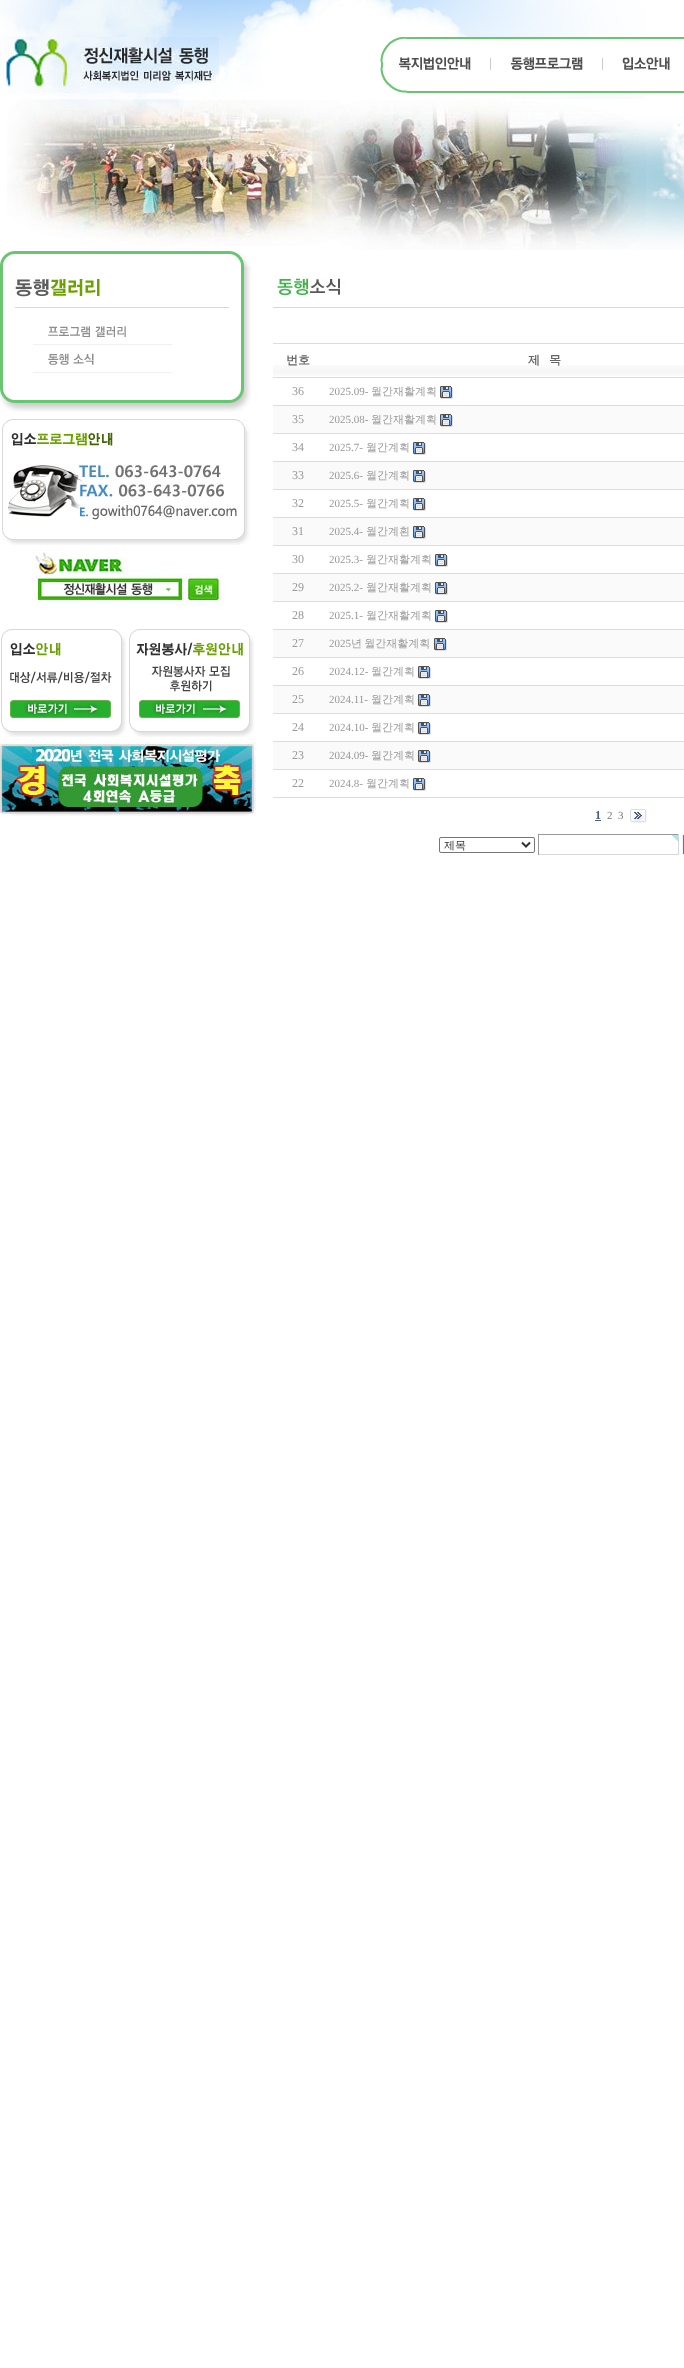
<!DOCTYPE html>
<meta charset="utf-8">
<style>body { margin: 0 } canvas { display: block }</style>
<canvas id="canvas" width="684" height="2368"></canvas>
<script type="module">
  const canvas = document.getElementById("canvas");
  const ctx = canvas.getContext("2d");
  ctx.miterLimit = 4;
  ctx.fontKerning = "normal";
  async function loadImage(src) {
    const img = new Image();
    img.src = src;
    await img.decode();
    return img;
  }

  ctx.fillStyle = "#ffffff";
  ctx.fillRect(0, 0, 684, 2368);
  ctx.drawImage(await loadImage("img1.png"), 0, 0, 646, 99);
  ctx.drawImage(await loadImage("img2.png"), 0, 37, 219, 56);
  ctx.drawImage(await loadImage("img3.png"), 380, 37, 304, 56);
  ctx.drawImage(await loadImage("img4.png"), 7, 99, 677, 151);
  ctx.drawImage(await loadImage("img5.png"), 0, 251, 250, 16);
  ctx.drawImage(await loadImage("img6.png"), 0, 267, 251, 121);
  ctx.fillStyle = "#d6d7d6";
  ctx.fillRect(15, 307, 214, 1);
  ctx.drawImage(await loadImage("img7.png"), 15, 279, 85, 18);
  ctx.drawImage(await loadImage("img8.png"), 33, 326, 140, 47);
  ctx.drawImage(await loadImage("img9.png"), 0, 388, 251, 24);
  ctx.drawImage(await loadImage("img10.png"), 2, 419, 248, 126);
  ctx.drawImage(await loadImage("img11.png"), 32, 550, 192, 56);
  ctx.drawImage(await loadImage("img12.png"), 1, 629, 125, 108);
  ctx.drawImage(await loadImage("img13.png"), 129, 629, 125, 108);
  ctx.drawImage(await loadImage("img14.png"), 0, 742, 256, 74);
  ctx.drawImage(await loadImage("img15.png"), 273, 277, 72, 20);
  ctx.fillRect(273, 307, 411, 1);
  ctx.drawImage(await loadImage("img16.png"), 273, 365, 50, 11);
  ctx.font = "bold 12px WenQuanYi Zen Hei";
  ctx.fillStyle = "#666666";
  ctx.fillText("번호", 286, 364);
  ctx.fillStyle = "#dddddd";
  ctx.fillRect(273, 343, 411, 1);
  ctx.fillRect(273, 377, 411, 1);
  ctx.drawImage(await loadImage("img17.png"), 323, 365, 361, 11);
  ctx.fillStyle = "#666666";
  ctx.fillText("제", 528, 364);
  ctx.fillText("목", 549, 364);
  ctx.font = "12px Liberation Serif";
  ctx.fillStyle = "#999999";
  ctx.fillText("36", 292, 395);
  ctx.fillStyle = "#dddddd";
  ctx.fillRect(273, 405, 411, 1);
  ctx.font = "11px Liberation Serif";
  ctx.fillStyle = "#999999";
  ctx.fillText("2025.09-", 329, 395);
  ctx.font = "500 11px WenQuanYi Zen Hei";
  ctx.fillText("월간재활계획", 371, 395);
  ctx.drawImage(await loadImage("img18.png"), 440, 386, 13, 13);
  ctx.fillStyle = "#fafafa";
  ctx.fillRect(273, 406, 411, 27);
  ctx.font = "12px Liberation Serif";
  ctx.fillStyle = "#999999";
  ctx.fillText("35", 292, 423);
  ctx.fillStyle = "#dddddd";
  ctx.fillRect(273, 433, 411, 1);
  ctx.font = "11px Liberation Serif";
  ctx.fillStyle = "#999999";
  ctx.fillText("2025.08-", 329, 423);
  ctx.font = "500 11px WenQuanYi Zen Hei";
  ctx.fillText("월간재활계획", 371, 423);
  ctx.drawImage(await loadImage("img18.png"), 440, 414, 13, 13);
  ctx.font = "12px Liberation Serif";
  ctx.fillText("34", 292, 451);
  ctx.fillStyle = "#dddddd";
  ctx.fillRect(273, 461, 411, 1);
  ctx.font = "11px Liberation Serif";
  ctx.fillStyle = "#999999";
  ctx.fillText("2025.7-", 329, 451);
  ctx.font = "500 11px WenQuanYi Zen Hei";
  ctx.fillText("월간계획", 366, 451);
  ctx.drawImage(await loadImage("img18.png"), 413, 442, 13, 13);
  ctx.fillStyle = "#fafafa";
  ctx.fillRect(273, 462, 411, 27);
  ctx.font = "12px Liberation Serif";
  ctx.fillStyle = "#999999";
  ctx.fillText("33", 292, 479);
  ctx.fillStyle = "#dddddd";
  ctx.fillRect(273, 489, 411, 1);
  ctx.font = "11px Liberation Serif";
  ctx.fillStyle = "#999999";
  ctx.fillText("2025.6-", 329, 479);
  ctx.font = "500 11px WenQuanYi Zen Hei";
  ctx.fillText("월간계획", 366, 479);
  ctx.drawImage(await loadImage("img18.png"), 413, 470, 13, 13);
  ctx.font = "12px Liberation Serif";
  ctx.fillText("32", 292, 507);
  ctx.fillStyle = "#dddddd";
  ctx.fillRect(273, 517, 411, 1);
  ctx.font = "11px Liberation Serif";
  ctx.fillStyle = "#999999";
  ctx.fillText("2025.5-", 329, 507);
  ctx.font = "500 11px WenQuanYi Zen Hei";
  ctx.fillText("월간계획", 366, 507);
  ctx.drawImage(await loadImage("img18.png"), 413, 498, 13, 13);
  ctx.fillStyle = "#fafafa";
  ctx.fillRect(273, 518, 411, 27);
  ctx.font = "12px Liberation Serif";
  ctx.fillStyle = "#999999";
  ctx.fillText("31", 292, 535);
  ctx.fillStyle = "#dddddd";
  ctx.fillRect(273, 545, 411, 1);
  ctx.font = "11px Liberation Serif";
  ctx.fillStyle = "#999999";
  ctx.fillText("2025.4-", 329, 535);
  ctx.font = "500 11px WenQuanYi Zen Hei";
  ctx.fillText("월간계횐", 366, 535);
  ctx.drawImage(await loadImage("img18.png"), 413, 526, 13, 13);
  ctx.font = "12px Liberation Serif";
  ctx.fillText("30", 292, 563);
  ctx.fillStyle = "#dddddd";
  ctx.fillRect(273, 573, 411, 1);
  ctx.font = "11px Liberation Serif";
  ctx.fillStyle = "#999999";
  ctx.fillText("2025.3-", 329, 563);
  ctx.font = "500 11px WenQuanYi Zen Hei";
  ctx.fillText("월간재활계획", 366, 563);
  ctx.drawImage(await loadImage("img18.png"), 435, 554, 13, 13);
  ctx.fillStyle = "#fafafa";
  ctx.fillRect(273, 574, 411, 27);
  ctx.font = "12px Liberation Serif";
  ctx.fillStyle = "#999999";
  ctx.fillText("29", 292, 591);
  ctx.fillStyle = "#dddddd";
  ctx.fillRect(273, 601, 411, 1);
  ctx.font = "11px Liberation Serif";
  ctx.fillStyle = "#999999";
  ctx.fillText("2025.2-", 329, 591);
  ctx.font = "500 11px WenQuanYi Zen Hei";
  ctx.fillText("월간재활계획", 366, 591);
  ctx.drawImage(await loadImage("img18.png"), 435, 582, 13, 13);
  ctx.font = "12px Liberation Serif";
  ctx.fillText("28", 292, 619);
  ctx.fillStyle = "#dddddd";
  ctx.fillRect(273, 629, 411, 1);
  ctx.font = "11px Liberation Serif";
  ctx.fillStyle = "#999999";
  ctx.fillText("2025.1-", 329, 619);
  ctx.font = "500 11px WenQuanYi Zen Hei";
  ctx.fillText("월간재활계획", 366, 619);
  ctx.drawImage(await loadImage("img18.png"), 435, 610, 13, 13);
  ctx.fillStyle = "#fafafa";
  ctx.fillRect(273, 630, 411, 27);
  ctx.font = "12px Liberation Serif";
  ctx.fillStyle = "#999999";
  ctx.fillText("27", 292, 647);
  ctx.fillStyle = "#dddddd";
  ctx.fillRect(273, 657, 411, 1);
  ctx.font = "11px Liberation Serif";
  ctx.fillStyle = "#999999";
  ctx.fillText("2025", 329, 647);
  ctx.wordSpacing = "-1px";
  ctx.font = "500 11px WenQuanYi Zen Hei";
  ctx.fillText("년 월간재활계획", 351, 647);
  ctx.drawImage(await loadImage("img18.png"), 434, 638, 13, 13);
  ctx.wordSpacing = "0px";
  ctx.font = "12px Liberation Serif";
  ctx.fillText("26", 292, 675);
  ctx.fillStyle = "#dddddd";
  ctx.fillRect(273, 685, 411, 1);
  ctx.font = "11px Liberation Serif";
  ctx.fillStyle = "#999999";
  ctx.fillText("2024.12-", 329, 675);
  ctx.font = "500 11px WenQuanYi Zen Hei";
  ctx.fillText("월간계획", 371, 675);
  ctx.drawImage(await loadImage("img18.png"), 418, 666, 13, 13);
  ctx.fillStyle = "#fafafa";
  ctx.fillRect(273, 686, 411, 27);
  ctx.font = "12px Liberation Serif";
  ctx.fillStyle = "#999999";
  ctx.fillText("25", 292, 703);
  ctx.fillStyle = "#dddddd";
  ctx.fillRect(273, 713, 411, 1);
  ctx.font = "11px Liberation Serif";
  ctx.fillStyle = "#999999";
  ctx.fillText("2024.11-", 329, 703);
  ctx.font = "500 11px WenQuanYi Zen Hei";
  ctx.fillText("월간계획", 371, 703);
  ctx.drawImage(await loadImage("img18.png"), 418, 694, 13, 13);
  ctx.font = "12px Liberation Serif";
  ctx.fillText("24", 292, 731);
  ctx.fillStyle = "#dddddd";
  ctx.fillRect(273, 741, 411, 1);
  ctx.font = "11px Liberation Serif";
  ctx.fillStyle = "#999999";
  ctx.fillText("2024.10-", 329, 731);
  ctx.font = "500 11px WenQuanYi Zen Hei";
  ctx.fillText("월간계획", 371, 731);
  ctx.drawImage(await loadImage("img18.png"), 418, 722, 13, 13);
  ctx.fillStyle = "#fafafa";
  ctx.fillRect(273, 742, 411, 27);
  ctx.font = "12px Liberation Serif";
  ctx.fillStyle = "#999999";
  ctx.fillText("23", 292, 759);
  ctx.fillStyle = "#dddddd";
  ctx.fillRect(273, 769, 411, 1);
  ctx.font = "11px Liberation Serif";
  ctx.fillStyle = "#999999";
  ctx.fillText("2024.09-", 329, 759);
  ctx.font = "500 11px WenQuanYi Zen Hei";
  ctx.fillText("월간계획", 371, 759);
  ctx.drawImage(await loadImage("img18.png"), 418, 750, 13, 13);
  ctx.font = "12px Liberation Serif";
  ctx.fillText("22", 292, 787);
  ctx.fillStyle = "#dddddd";
  ctx.fillRect(273, 797, 411, 1);
  ctx.font = "11px Liberation Serif";
  ctx.fillStyle = "#999999";
  ctx.fillText("2024.8-", 329, 787);
  ctx.font = "500 11px WenQuanYi Zen Hei";
  ctx.fillText("월간계획", 366, 787);
  ctx.drawImage(await loadImage("img18.png"), 413, 778, 13, 13);
  ctx.font = "bold 12px Liberation Serif";
  ctx.fillStyle = "#4d6185";
  ctx.fillText("1", 595, 819);
  ctx.fillRect(595, 820, 6, 1);
  ctx.font = "11px Liberation Serif";
  ctx.fillStyle = "#777777";
  ctx.fillText("2", 607, 819);
  ctx.fillText("3", 618, 819);
  ctx.drawImage(await loadImage("img19.png"), 630, 809, 17, 14);
  ctx.beginPath();
  ctx.roundRect(439.5, 837.5, 95, 15, 1.5);
  ctx.strokeStyle = "#767676";
  ctx.stroke();
  ctx.beginPath();
  ctx.moveTo(522, 842.5);
  ctx.lineTo(526, 846.5);
  ctx.lineTo(530, 842.5);
  ctx.strokeStyle = "#333333";
  ctx.lineWidth = 2;
  ctx.stroke();
  ctx.font = "500 11px WenQuanYi Zen Hei";
  ctx.fillStyle = "#333333";
  ctx.fillText("제목", 444, 849);
  ctx.drawImage(await loadImage("img20.png"), 672, 835, 6, 6);
  ctx.fillStyle = "#9a9a9a";
  ctx.fillRect(538, 834, 141, 1);
  ctx.fillStyle = "#d8d8d8";
  ctx.fillRect(678, 834, 1, 21);
  ctx.fillRect(538, 854, 141, 1);
  ctx.fillStyle = "#9a9a9a";
  ctx.fillRect(538, 834, 1, 21);
  ctx.drawImage(await loadImage("img21.png"), 682, 833, 2, 23);
</script>
